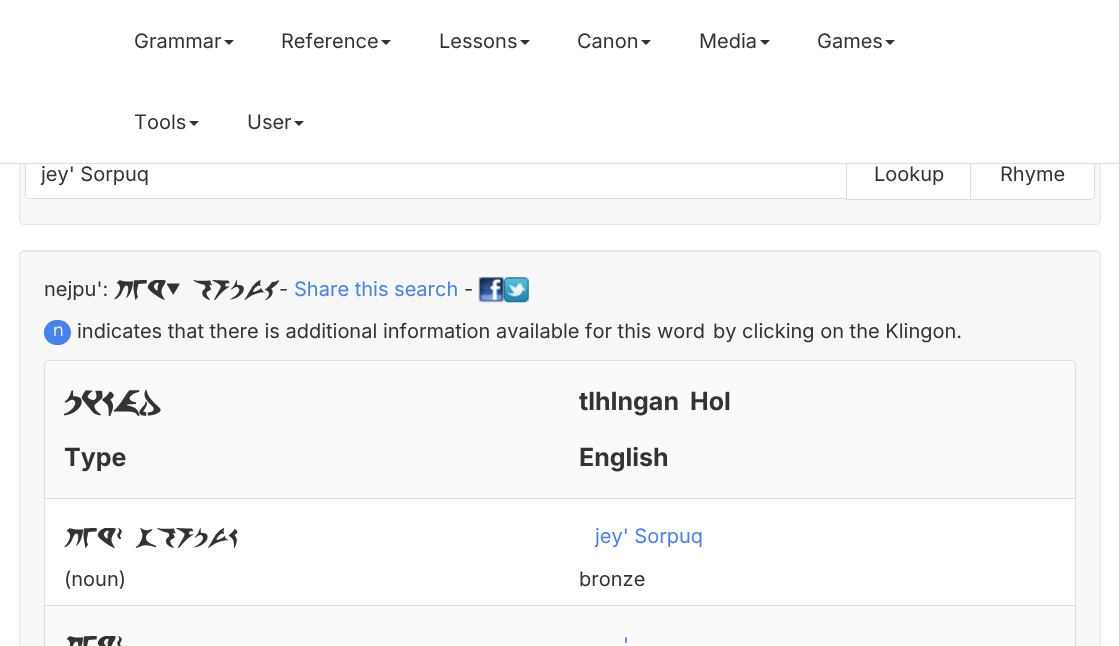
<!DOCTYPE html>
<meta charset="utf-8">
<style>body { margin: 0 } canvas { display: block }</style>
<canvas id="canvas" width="1119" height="646"></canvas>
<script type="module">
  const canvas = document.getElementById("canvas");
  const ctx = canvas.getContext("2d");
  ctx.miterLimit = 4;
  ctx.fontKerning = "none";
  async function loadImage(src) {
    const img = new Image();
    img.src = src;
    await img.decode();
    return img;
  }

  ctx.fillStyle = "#ffffff";
  ctx.fillRect(0, 0, 1119, 646);
  ctx.fillStyle = "#f7f7f7";
  ctx.beginPath();
  ctx.roundRect(19.5, 124.5, 1081, 100, 4.5);
  ctx.fill();
  ctx.strokeStyle = "#e5e5e5";
  ctx.stroke();
  ctx.fillStyle = "#ffffff";
  ctx.beginPath();
  ctx.roundRect(25.5, 149.5, 822, 49, [4.5, 0, 0, 4.5]);
  ctx.fill();
  ctx.strokeStyle = "#dddddd";
  ctx.stroke();
  ctx.fillRect(847, 164, 123, 35);
  ctx.strokeRect(846.5, 149.5, 124, 50);
  ctx.beginPath();
  ctx.roundRect(970.5, 149.5, 124, 50, [0, 4.5, 4.5, 0]);
  ctx.fill();
  ctx.stroke();
  ctx.fillRect(19, 124, 1082, 39);
  ctx.fillStyle = "#dddddd";
  ctx.fillRect(0, 163, 1119, 1);
  ctx.font = "20px Inter";
  ctx.fillStyle = "#333333";
  ctx.fillText("Grammar", 134, 48);
  ctx.beginPath();
  ctx.moveTo(224, 40);
  ctx.lineTo(234, 40);
  ctx.lineTo(229, 45);
  ctx.closePath();
  ctx.fill();
  ctx.fillText("Reference", 281, 48);
  ctx.beginPath();
  ctx.moveTo(381, 40);
  ctx.lineTo(391, 40);
  ctx.lineTo(386, 45);
  ctx.closePath();
  ctx.fill();
  ctx.fillText("Lessons", 439, 48);
  ctx.beginPath();
  ctx.moveTo(520, 40);
  ctx.lineTo(530, 40);
  ctx.lineTo(525, 45);
  ctx.closePath();
  ctx.fill();
  ctx.fillText("Canon", 577, 48);
  ctx.beginPath();
  ctx.moveTo(641, 40);
  ctx.lineTo(651, 40);
  ctx.lineTo(646, 45);
  ctx.closePath();
  ctx.fill();
  ctx.fillText("Media", 699, 48);
  ctx.beginPath();
  ctx.moveTo(760, 40);
  ctx.lineTo(770, 40);
  ctx.lineTo(765, 45);
  ctx.closePath();
  ctx.fill();
  ctx.fillText("Games", 817, 48);
  ctx.beginPath();
  ctx.moveTo(885, 40);
  ctx.lineTo(895, 40);
  ctx.lineTo(890, 45);
  ctx.closePath();
  ctx.fill();
  ctx.fillText("Tools", 134, 129);
  ctx.beginPath();
  ctx.moveTo(189, 121);
  ctx.lineTo(199, 121);
  ctx.lineTo(194, 126);
  ctx.closePath();
  ctx.fill();
  ctx.fillText("User", 247, 129);
  ctx.beginPath();
  ctx.moveTo(294, 121);
  ctx.lineTo(304, 121);
  ctx.lineTo(299, 126);
  ctx.closePath();
  ctx.fill();
  ctx.fillText("jey' Sorpuq", 41, 181);
  ctx.fillText("Lookup", 874, 181);
  ctx.fillText("Rhyme", 1000, 181);
  ctx.fillStyle = "#f7f7f7";
  ctx.beginPath();
  ctx.roundRect(19, 250, 1082, 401, 5);
  ctx.fill();
  ctx.fillStyle = "#ebebeb";
  ctx.beginPath();
  ctx.moveTo(24, 252);
  ctx.lineTo(1096, 252);
  ctx.bezierCurveTo(1098, 252, 1100, 254, 1100, 256);
  ctx.bezierCurveTo(1100, 253, 1099, 251, 1096, 251);
  ctx.lineTo(24, 251);
  ctx.bezierCurveTo(21, 251, 20, 253, 20, 256);
  ctx.bezierCurveTo(20, 254, 22, 252, 24, 252);
  ctx.closePath();
  ctx.fill();
  ctx.beginPath();
  ctx.roundRect(19.5, 250.5, 1081, 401, 4.5);
  ctx.strokeStyle = "#e5e5e5";
  ctx.stroke();
  ctx.fillStyle = "#333333";
  ctx.fillText("nejpu':", 44, 296);
  ctx.wordSpacing = "-1px";
  ctx.font = "500 20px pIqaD";
  ctx.fillText("jey', Sorpuq", 114, 296);
  ctx.wordSpacing = "0px";
  ctx.font = "20px Inter";
  ctx.fillText("-", 279, 296);
  ctx.fillStyle = "#4582ec";
  ctx.fillText("Share this search", 294, 296);
  ctx.fillStyle = "#333333";
  ctx.fillText("-", 464, 296);
  ctx.drawImage(await loadImage("img1.png"), 478, 277, 26, 26);
  ctx.drawImage(await loadImage("img2.png"), 503, 277, 26, 26);
  ctx.fillStyle = "#4582ec";
  ctx.beginPath();
  ctx.roundRect(44, 320, 27, 25, 12.5);
  ctx.fill();
  ctx.font = "18px Raleway";
  ctx.fillStyle = "#ffffff";
  ctx.fillText("n", 53, 336);
  ctx.font = "20px Inter";
  ctx.fillStyle = "#333333";
  ctx.fillText("indicates that there is additional information available for this word", 77, 338);
  ctx.fillText("by clicking on the Klingon.", 713, 338);
  ctx.fillStyle = "#fafafa";
  ctx.beginPath();
  ctx.roundRect(44.5, 360.5, 1031, 138, [4.5, 4.5, 0, 0]);
  ctx.fill();
  ctx.strokeStyle = "#dddddd";
  ctx.stroke();
  ctx.font = "bold 25px pIqaD";
  ctx.fillStyle = "#333333";
  ctx.fillText("pikad", 64, 411);
  ctx.font = "bold 25px Inter";
  ctx.fillText("tlhIngan", 579, 410);
  ctx.fillText("Hol", 690, 410);
  ctx.fillText("Type", 64, 466);
  ctx.fillText("English", 579, 466);
  ctx.fillStyle = "#ffffff";
  ctx.beginPath();
  ctx.rect(44.5, 498.5, 1031, 107);
  ctx.fill();
  ctx.stroke();
  ctx.wordSpacing = "-1px";
  ctx.font = "500 20px pIqaD";
  ctx.fillStyle = "#333333";
  ctx.fillText("jeyz sorpuk", 64, 544);
  ctx.wordSpacing = "0px";
  ctx.font = "20px Inter";
  ctx.fillStyle = "#4582ec";
  ctx.fillText("jey' Sorpuq", 595, 543);
  ctx.fillStyle = "#333333";
  ctx.fillText("(noun)", 64, 586);
  ctx.fillText("bronze", 579, 586);
  ctx.fillStyle = "#fafafa";
  ctx.beginPath();
  ctx.rect(44.5, 605.5, 1031, 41);
  ctx.fill();
  ctx.stroke();
  ctx.font = "500 20px pIqaD";
  ctx.fillStyle = "#333333";
  ctx.fillText("jeyz", 64, 652);
  ctx.font = "20px Inter";
  ctx.fillStyle = "#4582ec";
  ctx.fillText("'", 623, 652);
</script>
